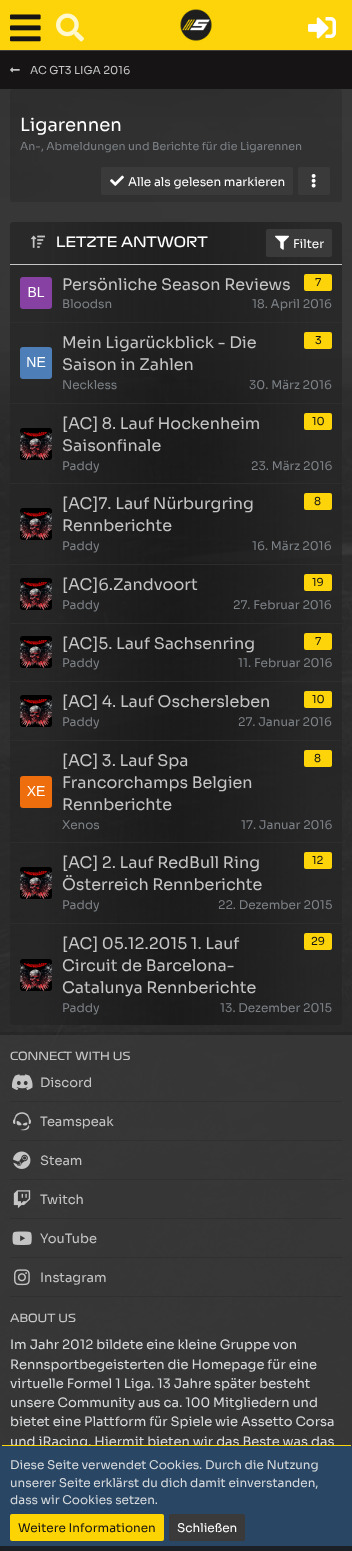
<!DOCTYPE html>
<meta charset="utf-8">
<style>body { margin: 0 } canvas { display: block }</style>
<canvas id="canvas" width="352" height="1551"></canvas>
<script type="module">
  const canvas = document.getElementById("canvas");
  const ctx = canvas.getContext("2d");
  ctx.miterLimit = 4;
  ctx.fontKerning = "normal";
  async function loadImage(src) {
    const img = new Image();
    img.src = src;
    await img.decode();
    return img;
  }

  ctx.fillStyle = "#ffffff";
  ctx.fillRect(0, 0, 352, 1551);
  ctx.drawImage(await loadImage("img1.png"), 0, 89, 352, 1462);
  ctx.fillStyle = "#fcd409";
  ctx.fillRect(0, 0, 352, 50);
  ctx.drawImage(await loadImage("img2.png"), 10, 14, 31, 28);
  ctx.drawImage(await loadImage("img3.png"), 56, 13, 28, 29);
  ctx.drawImage(await loadImage("img4.png"), 179, 8, 34, 34);
  ctx.drawImage(await loadImage("img5.png"), 308, 17, 28, 22);
  ctx.fillStyle = "#161414";
  ctx.fillRect(0, 51, 352, 38);
  ctx.fillStyle = "#403e3e";
  ctx.fillRect(0, 50, 352, 1);
  ctx.drawImage(await loadImage("img6.png"), 10, 67, 10, 6);
  ctx.font = "11px Sora";
  ctx.fillStyle = "#c5c5c5";
  ctx.fillText("AC GT3 LIGA 2016", 30, 74);
  ctx.fillStyle = "rgba(0, 0, 0, 0.12)";
  ctx.beginPath();
  ctx.roundRect(10, 89, 332, 76, [3, 3, 0, 0]);
  ctx.fill();
  ctx.font = "18px Sora";
  ctx.fillStyle = "#ffffff";
  ctx.fillText("Ligarennen", 20, 131);
  ctx.font = "11px Sora";
  ctx.fillStyle = "#7d8287";
  ctx.fillText("An-, Abmeldungen und Berichte für die Ligarennen", 20, 150);
  ctx.fillStyle = "rgba(0, 0, 0, 0.12)";
  ctx.beginPath();
  ctx.roundRect(10, 165, 332, 37, [0, 0, 3, 3]);
  ctx.fill();
  ctx.fillStyle = "#3a3a3a";
  ctx.beginPath();
  ctx.roundRect(101, 167, 192, 28, 2);
  ctx.fill();
  ctx.drawImage(await loadImage("img7.png"), 110, 175, 14, 11);
  ctx.font = "12px Sora";
  ctx.fillStyle = "#ffffff";
  ctx.fillText("Alle als gelesen markieren", 128, 186);
  ctx.fillStyle = "#3a3a3a";
  ctx.beginPath();
  ctx.roundRect(298, 167, 32, 28, 2);
  ctx.fill();
  ctx.drawImage(await loadImage("img8.png"), 311, 174, 5, 14);
  ctx.fillStyle = "#c5c5c5";
  ctx.fillRect(10, 264, 332, 1);
  ctx.drawImage(await loadImage("img9.png"), 31, 235, 15, 13);
  ctx.font = "14px 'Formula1'";
  ctx.fillStyle = "#ffffff";
  ctx.fillText("LETZTE ANTWORT", 56, 247);
  ctx.fillStyle = "#3a3a3a";
  ctx.beginPath();
  ctx.roundRect(266, 229, 66, 28, 2);
  ctx.fill();
  ctx.drawImage(await loadImage("img10.png"), 275, 235, 14, 15);
  ctx.font = "12px Sora";
  ctx.fillStyle = "#ffffff";
  ctx.fillText("Filter", 293, 248);
  ctx.drawImage(await loadImage("img11.png"), 20, 277, 32, 32);
  ctx.font = "16px Sora";
  ctx.fillStyle = "#c5c5c5";
  ctx.fillText("Persönliche Season Reviews", 62, 290);
  ctx.fillStyle = "#fcd409";
  ctx.beginPath();
  ctx.roundRect(304, 274, 28, 17, 2);
  ctx.fill();
  ctx.font = "11px Sora";
  ctx.fillStyle = "#161414";
  ctx.fillText("7", 315, 286);
  ctx.font = "12px Sora";
  ctx.fillStyle = "#7d8287";
  ctx.fillText("Bloodsn", 62, 308);
  ctx.fillText("18. April 2016", 252, 308);
  ctx.fillStyle = "rgba(47, 47, 47, 0.9)";
  ctx.fillRect(10, 322, 332, 1);
  ctx.drawImage(await loadImage("img12.png"), 20, 347, 32, 32);
  ctx.font = "16px Sora";
  ctx.fillStyle = "#c5c5c5";
  ctx.fillText("Mein Ligarückblick - Die", 62, 348);
  ctx.fillText("Saison in Zahlen", 62, 370);
  ctx.fillStyle = "#fcd409";
  ctx.beginPath();
  ctx.roundRect(304, 332, 28, 17, 2);
  ctx.fill();
  ctx.font = "11px Sora";
  ctx.fillStyle = "#161414";
  ctx.fillText("3", 315, 344);
  ctx.font = "12px Sora";
  ctx.fillStyle = "#7d8287";
  ctx.fillText("Neckless", 62, 389);
  ctx.fillText("30. März 2016", 249, 389);
  ctx.fillStyle = "rgba(47, 47, 47, 0.9)";
  ctx.fillRect(10, 403, 332, 1);
  ctx.drawImage(await loadImage("img13.png"), 20, 428, 32, 32);
  ctx.font = "16px Sora";
  ctx.fillStyle = "#c5c5c5";
  ctx.fillText("[AC] 8. Lauf Hockenheim", 62, 429);
  ctx.fillText("Saisonfinale", 62, 451);
  ctx.fillStyle = "#fcd409";
  ctx.beginPath();
  ctx.roundRect(304, 413, 28, 17, 2);
  ctx.fill();
  ctx.font = "11px Sora";
  ctx.fillStyle = "#161414";
  ctx.fillText("10", 312, 425);
  ctx.font = "12px Sora";
  ctx.fillStyle = "#7d8287";
  ctx.fillText("Paddy", 62, 470);
  ctx.fillText("23. März 2016", 251, 470);
  ctx.fillStyle = "rgba(47, 47, 47, 0.9)";
  ctx.fillRect(10, 483, 332, 1);
  ctx.drawImage(await loadImage("img14.png"), 20, 508, 32, 32);
  ctx.font = "16px Sora";
  ctx.fillStyle = "#c5c5c5";
  ctx.fillText("[AC]7. Lauf Nürburgring", 62, 509);
  ctx.fillText("Rennberichte", 62, 531);
  ctx.fillStyle = "#fcd409";
  ctx.beginPath();
  ctx.roundRect(304, 493, 28, 17, 2);
  ctx.fill();
  ctx.font = "11px Sora";
  ctx.fillStyle = "#161414";
  ctx.fillText("8", 314, 505);
  ctx.font = "12px Sora";
  ctx.fillStyle = "#7d8287";
  ctx.fillText("Paddy", 62, 550);
  ctx.fillText("16. März 2016", 252, 550);
  ctx.fillStyle = "rgba(47, 47, 47, 0.9)";
  ctx.fillRect(10, 564, 332, 1);
  ctx.drawImage(await loadImage("img15.png"), 20, 578, 32, 32);
  ctx.font = "16px Sora";
  ctx.fillStyle = "#c5c5c5";
  ctx.fillText("[AC]6.Zandvoort", 62, 590);
  ctx.fillStyle = "#fcd409";
  ctx.beginPath();
  ctx.roundRect(304, 574, 28, 17, 2);
  ctx.fill();
  ctx.font = "11px Sora";
  ctx.fillStyle = "#161414";
  ctx.fillText("19", 312, 586);
  ctx.font = "12px Sora";
  ctx.fillStyle = "#7d8287";
  ctx.fillText("Paddy", 62, 609);
  ctx.fillText("27. Februar 2016", 233, 609);
  ctx.fillStyle = "rgba(47, 47, 47, 0.9)";
  ctx.fillRect(10, 623, 332, 1);
  ctx.drawImage(await loadImage("img16.png"), 20, 636, 32, 32);
  ctx.font = "16px Sora";
  ctx.fillStyle = "#c5c5c5";
  ctx.fillText("[AC]5. Lauf Sachsenring", 62, 649);
  ctx.fillStyle = "#fcd409";
  ctx.beginPath();
  ctx.roundRect(304, 633, 28, 17, 2);
  ctx.fill();
  ctx.font = "11px Sora";
  ctx.fillStyle = "#161414";
  ctx.fillText("7", 315, 645);
  ctx.font = "12px Sora";
  ctx.fillStyle = "#7d8287";
  ctx.fillText("Paddy", 62, 667);
  ctx.fillText("11. Februar 2016", 238, 667);
  ctx.fillStyle = "rgba(47, 47, 47, 0.9)";
  ctx.fillRect(10, 681, 332, 1);
  ctx.drawImage(await loadImage("img17.png"), 20, 695, 32, 32);
  ctx.font = "16px Sora";
  ctx.fillStyle = "#c5c5c5";
  ctx.fillText("[AC] 4. Lauf Oschersleben", 62, 707);
  ctx.fillStyle = "#fcd409";
  ctx.beginPath();
  ctx.roundRect(304, 691, 28, 17, 2);
  ctx.fill();
  ctx.font = "11px Sora";
  ctx.fillStyle = "#161414";
  ctx.fillText("10", 312, 703);
  ctx.font = "12px Sora";
  ctx.fillStyle = "#7d8287";
  ctx.fillText("Paddy", 62, 726);
  ctx.fillText("27. Januar 2016", 238, 726);
  ctx.fillStyle = "rgba(47, 47, 47, 0.9)";
  ctx.fillRect(10, 740, 332, 1);
  ctx.drawImage(await loadImage("img18.png"), 20, 776, 32, 32);
  ctx.font = "16px Sora";
  ctx.fillStyle = "#c5c5c5";
  ctx.fillText("[AC] 3. Lauf Spa", 62, 766);
  ctx.fillText("Francorchamps Belgien", 62, 788);
  ctx.fillText("Rennberichte", 62, 810);
  ctx.fillStyle = "#fcd409";
  ctx.beginPath();
  ctx.roundRect(304, 750, 28, 17, 2);
  ctx.fill();
  ctx.font = "11px Sora";
  ctx.fillStyle = "#161414";
  ctx.fillText("8", 314, 762);
  ctx.font = "12px Sora";
  ctx.fillStyle = "#7d8287";
  ctx.fillText("Xenos", 62, 829);
  ctx.fillText("17. Januar 2016", 241, 829);
  ctx.fillStyle = "rgba(47, 47, 47, 0.9)";
  ctx.fillRect(10, 842, 332, 1);
  ctx.drawImage(await loadImage("img15.png"), 20, 867, 32, 32);
  ctx.font = "16px Sora";
  ctx.fillStyle = "#c5c5c5";
  ctx.fillText("[AC] 2. Lauf RedBull Ring", 62, 868);
  ctx.fillText("Österreich Rennberichte", 62, 890);
  ctx.fillStyle = "#fcd409";
  ctx.beginPath();
  ctx.roundRect(304, 852, 28, 17, 2);
  ctx.fill();
  ctx.font = "11px Sora";
  ctx.fillStyle = "#161414";
  ctx.fillText("12", 312, 864);
  ctx.font = "12px Sora";
  ctx.fillStyle = "#7d8287";
  ctx.fillText("Paddy", 62, 909);
  ctx.fillText("22. Dezember 2015", 218, 909);
  ctx.fillStyle = "rgba(47, 47, 47, 0.9)";
  ctx.fillRect(10, 923, 332, 1);
  ctx.drawImage(await loadImage("img19.png"), 20, 959, 32, 32);
  ctx.font = "16px Sora";
  ctx.fillStyle = "#c5c5c5";
  ctx.fillText("[AC] 05.12.2015 1. Lauf", 62, 949);
  ctx.fillText("Circuit de Barcelona-", 62, 971);
  ctx.fillText("Catalunya Rennberichte", 62, 993);
  ctx.fillStyle = "#fcd409";
  ctx.beginPath();
  ctx.roundRect(304, 933, 28, 17, 2);
  ctx.fill();
  ctx.font = "11px Sora";
  ctx.fillStyle = "#161414";
  ctx.fillText("29", 311, 945);
  ctx.font = "12px Sora";
  ctx.fillStyle = "#7d8287";
  ctx.fillText("Paddy", 62, 1012);
  ctx.fillText("13. Dezember 2015", 220, 1012);
  ctx.fillStyle = "rgba(0, 0, 0, 0.1)";
  ctx.fillRect(0, 1032, 352, 3);
  ctx.fillStyle = "rgba(58, 58, 58, 0.8)";
  ctx.fillRect(0, 1035, 352, 516);
  ctx.font = "11px 'Formula1'";
  ctx.fillStyle = "#c5c5c5";
  ctx.fillText("CONNECT WITH US", 10, 1060);
  ctx.fillStyle = "#303030";
  ctx.fillRect(10, 1101, 332, 1);
  ctx.drawImage(await loadImage("img20.png"), 11, 1074, 22, 17);
  ctx.font = "13px Sora";
  ctx.fillStyle = "#c5c5c5";
  ctx.fillText("Discord", 40, 1087);
  ctx.fillStyle = "#303030";
  ctx.fillRect(10, 1140, 332, 1);
  ctx.drawImage(await loadImage("img21.png"), 13, 1112, 18, 19);
  ctx.fillStyle = "#c5c5c5";
  ctx.fillText("Teamspeak", 40, 1126);
  ctx.fillStyle = "#303030";
  ctx.fillRect(10, 1179, 332, 1);
  ctx.drawImage(await loadImage("img22.png"), 13, 1151, 18, 18);
  ctx.fillStyle = "#c5c5c5";
  ctx.fillText("Steam", 40, 1165);
  ctx.fillStyle = "#303030";
  ctx.fillRect(10, 1218, 332, 1);
  ctx.drawImage(await loadImage("img23.png"), 13, 1190, 18, 18);
  ctx.fillStyle = "#c5c5c5";
  ctx.fillText("Twitch", 40, 1204);
  ctx.fillStyle = "#303030";
  ctx.fillRect(10, 1257, 332, 1);
  ctx.drawImage(await loadImage("img24.png"), 12, 1231, 20, 14);
  ctx.fillStyle = "#c5c5c5";
  ctx.fillText("YouTube", 40, 1243);
  ctx.fillStyle = "#303030";
  ctx.fillRect(10, 1296, 332, 1);
  ctx.drawImage(await loadImage("img25.png"), 14, 1269, 16, 17);
  ctx.fillStyle = "#c5c5c5";
  ctx.fillText("Instagram", 40, 1282);
  ctx.font = "11px 'Formula1'";
  ctx.fillText("ABOUT US", 10, 1322);
  ctx.font = "13px Sora";
  ctx.fillStyle = "#d9dcde";
  ctx.fillText("Im Jahr 2012 bildete eine kleine Gruppe von", 10, 1349);
  ctx.fillText("Rennsportbegeisterten die Homepage für eine", 10, 1369);
  ctx.fillText("virtuelle Formel 1 Liga. 13 Jahre später besteht", 10, 1388);
  ctx.fillText("unsere Community aus ca. 100 Mitgliedern und", 10, 1407);
  ctx.fillText("bietet eine Plattform für Spiele wie Assetto Corsa", 10, 1426);
  ctx.fillText("und iRacing. Hiermit bieten wir das Beste was das", 10, 1446);
  ctx.fillStyle = "#294665";
  ctx.beginPath();
  ctx.roundRect(0, 1445, 352, 106, 3);
  ctx.fill();
  ctx.fillStyle = "#fcd409";
  ctx.fillRect(2, 1445, 349, 1);
  ctx.font = "12px Sora";
  ctx.fillStyle = "#d9dcde";
  ctx.fillText("Diese Seite verwendet Cookies. Durch die Nutzung", 10, 1469);
  ctx.fillText("unserer Seite erklärst du dich damit einverstanden,", 10, 1487);
  ctx.fillText("dass wir Cookies setzen.", 10, 1504);
  ctx.fillStyle = "#fdd403";
  ctx.beginPath();
  ctx.roundRect(10, 1514, 154, 27, 2);
  ctx.fill();
  ctx.fillStyle = "#161414";
  ctx.fillText("Weitere Informationen", 18, 1532);
  ctx.fillStyle = "#3a3a3a";
  ctx.beginPath();
  ctx.roundRect(169, 1514, 76, 27, 2);
  ctx.fill();
  ctx.fillStyle = "#ffffff";
  ctx.fillText("Schließen", 177, 1532);
  ctx.fillStyle = "rgba(24, 22, 23, 0.8)";
  ctx.fillRect(0, 1546, 352, 5);
</script>
